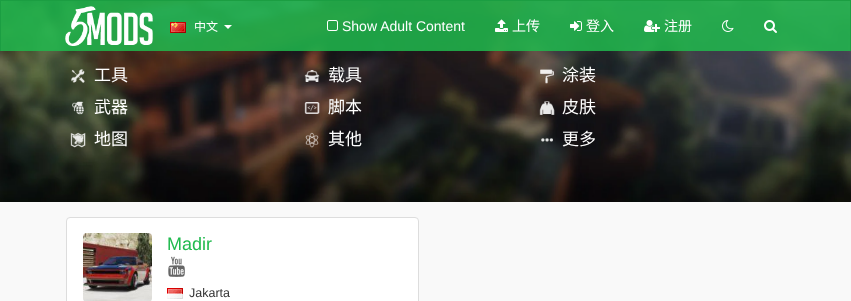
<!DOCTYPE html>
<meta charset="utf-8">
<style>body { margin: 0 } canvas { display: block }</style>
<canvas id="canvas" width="851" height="301"></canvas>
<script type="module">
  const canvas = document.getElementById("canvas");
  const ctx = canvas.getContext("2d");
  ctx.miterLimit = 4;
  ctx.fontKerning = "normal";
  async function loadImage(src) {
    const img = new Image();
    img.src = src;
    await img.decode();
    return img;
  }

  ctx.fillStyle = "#f9f9f9";
  ctx.fillRect(0, 0, 851, 301);
  ctx.drawImage(await loadImage("img9.png"), 0, 1, 851, 201);
  ctx.fillStyle = "rgba(32, 186, 78, 0.85)";
  ctx.fillRect(1, 1, 849, 50);
  ctx.fillStyle = "#1b9e42";
  ctx.fillRect(0, 0, 851, 1);
  ctx.fillRect(850, 0, 1, 51);
  ctx.fillRect(0, 0, 1, 51);
  ctx.drawImage(await loadImage("img1.png"), 65, 6, 88, 40);
  ctx.drawImage(await loadImage("img2.png"), 170, 22, 16, 11);
  ctx.font = "12px Noto Sans CJK SC";
  ctx.fillStyle = "#ffffff";
  ctx.fillText("中文", 194, 31);
  ctx.beginPath();
  ctx.moveTo(224, 25);
  ctx.lineTo(232, 25);
  ctx.lineTo(228, 29);
  ctx.closePath();
  ctx.fill();
  ctx.drawImage(await loadImage("img3.png"), 327, 20, 11, 11);
  ctx.font = "14px Liberation Sans";
  ctx.fillText("Show Adult Content", 342, 31);
  ctx.drawImage(await loadImage("img4.png"), 495, 19, 13, 13);
  ctx.font = "14px Noto Sans CJK SC";
  ctx.fillText("上传", 512, 31);
  ctx.drawImage(await loadImage("img5.png"), 570, 21, 12, 10);
  ctx.fillText("登入", 586, 31);
  ctx.drawImage(await loadImage("img6.png"), 644, 20, 16, 12);
  ctx.fillText("注册", 664, 31);
  ctx.drawImage(await loadImage("img7.png"), 722, 20, 12, 12);
  ctx.drawImage(await loadImage("img8.png"), 764, 20, 13, 13);
  ctx.drawImage(await loadImage("img10.png"), 71, 69, 14, 14);
  ctx.font = "17px Noto Sans CJK SC";
  ctx.fillText("工具", 94, 81);
  ctx.drawImage(await loadImage("img11.png"), 304, 70, 16, 12);
  ctx.fillText("载具", 328, 81);
  ctx.drawImage(await loadImage("img12.png"), 540, 69, 14, 15);
  ctx.fillText("涂装", 562, 81);
  ctx.drawImage(await loadImage("img13.png"), 72, 101, 12, 14);
  ctx.fillText("武器", 94, 113);
  ctx.drawImage(await loadImage("img14.png"), 304, 102, 16, 12);
  ctx.fillText("脚本", 328, 113);
  ctx.drawImage(await loadImage("img15.png"), 539, 101, 16, 14);
  ctx.fillText("皮肤", 562, 113);
  ctx.drawImage(await loadImage("img16.png"), 70, 132, 16, 16);
  ctx.fillText("地图", 94, 145);
  ctx.drawImage(await loadImage("img17.png"), 305, 132, 14, 16);
  ctx.fillText("其他", 328, 145);
  ctx.drawImage(await loadImage("img18.png"), 541, 138, 12, 4);
  ctx.fillText("更多", 562, 145);
  ctx.beginPath();
  ctx.roundRect(66.5, 217.5, 352, 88, 3.5);
  ctx.fill();
  ctx.strokeStyle = "#dddddd";
  ctx.stroke();
  ctx.drawImage(await loadImage("img19.png"), 83, 233, 69, 68);
  ctx.font = "18px Liberation Sans";
  ctx.fillStyle = "#20ba4e";
  ctx.fillText("Madir", 167, 250);
  ctx.drawImage(await loadImage("img20.png"), 168, 256, 17, 21);
  ctx.drawImage(await loadImage("img21.png"), 167, 288, 16, 11);
  ctx.font = "12.5px Liberation Sans";
  ctx.fillStyle = "#333333";
  ctx.fillText("Jakarta", 189, 297);
</script>
